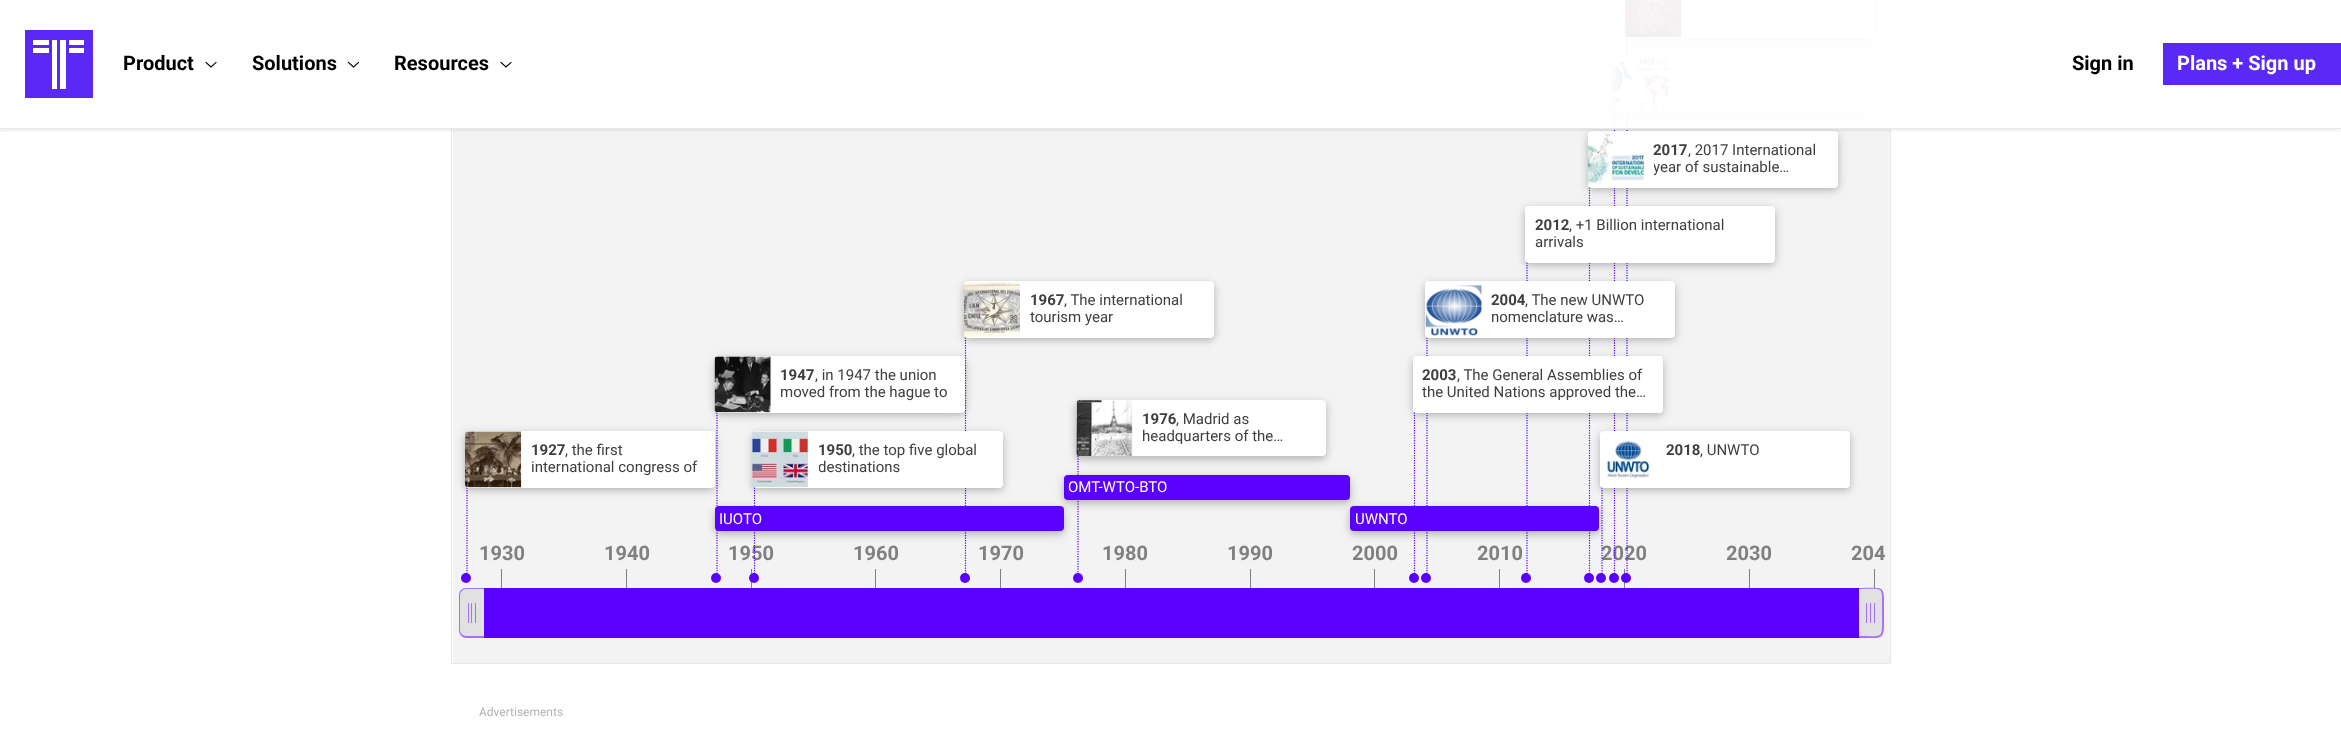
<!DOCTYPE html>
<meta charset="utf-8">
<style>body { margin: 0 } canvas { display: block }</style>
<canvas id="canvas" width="2341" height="737"></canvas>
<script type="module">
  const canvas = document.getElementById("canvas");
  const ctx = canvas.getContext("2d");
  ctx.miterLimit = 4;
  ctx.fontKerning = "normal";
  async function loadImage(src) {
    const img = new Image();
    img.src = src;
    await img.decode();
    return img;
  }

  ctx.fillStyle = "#ffffff";
  ctx.fillRect(0, 0, 2341, 737);
  ctx.strokeStyle = "#e8e8e9";
  ctx.strokeRect(451.5, -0.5, 1439, 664);
  ctx.fillStyle = "#f3f3f3";
  ctx.fillRect(453, 0, 1437, 663);
  ctx.font = "bold 20px Roboto";
  ctx.fillStyle = "#808080";
  ctx.fillText("2020", 1601, 560);
  ctx.beginPath();
  ctx.moveTo(1627, 37.5);
  ctx.lineTo(1627, 577.5);
  ctx.strokeStyle = "#5a00ff";
  ctx.lineWidth = 1.2;
  ctx.setLineDash([1.25, 1.25]);
  ctx.stroke();
  ctx.beginPath();
  ctx.moveTo(1614.5, 112.5);
  ctx.lineTo(1614.5, 577.5);
  ctx.stroke();
  ctx.beginPath();
  ctx.moveTo(1589.5, 187.5);
  ctx.lineTo(1589.5, 577.5);
  ctx.stroke();
  ctx.beginPath();
  ctx.moveTo(1527, 262.5);
  ctx.lineTo(1527, 577.5);
  ctx.stroke();
  ctx.beginPath();
  ctx.moveTo(1427, 337.5);
  ctx.lineTo(1427, 577.5);
  ctx.stroke();
  ctx.beginPath();
  ctx.moveTo(1414.5, 412.5);
  ctx.lineTo(1414.5, 577.5);
  ctx.stroke();
  ctx.beginPath();
  ctx.moveTo(1602, 487.5);
  ctx.lineTo(1602, 577.5);
  ctx.stroke();
  ctx.fillStyle = "rgba(0, 0, 0, 0.12)";
  ctx.filter = "blur(6px)";
  ctx.beginPath();
  ctx.roundRect(1600, 434, 250, 56, 4);
  ctx.fill();
  ctx.filter = "none";
  ctx.fillStyle = "rgba(0, 0, 0, 0.16)";
  ctx.filter = "blur(3px)";
  ctx.beginPath();
  ctx.roundRect(1600, 434, 250, 56, 4);
  ctx.fill();
  ctx.filter = "none";
  ctx.fillStyle = "#ffffff";
  ctx.beginPath();
  ctx.roundRect(1600, 431, 250, 57, 4);
  ctx.fill();
  ctx.fillStyle = "rgba(0, 0, 0, 0.12)";
  ctx.filter = "blur(6px)";
  ctx.beginPath();
  ctx.roundRect(1413, 359, 250, 56, 4);
  ctx.fill();
  ctx.filter = "none";
  ctx.fillStyle = "rgba(0, 0, 0, 0.16)";
  ctx.filter = "blur(3px)";
  ctx.beginPath();
  ctx.roundRect(1413, 359, 250, 56, 4);
  ctx.fill();
  ctx.filter = "none";
  ctx.fillStyle = "#ffffff";
  ctx.beginPath();
  ctx.roundRect(1413, 356, 250, 57, 4);
  ctx.fill();
  ctx.fillStyle = "rgba(0, 0, 0, 0.12)";
  ctx.filter = "blur(6px)";
  ctx.beginPath();
  ctx.roundRect(1425, 284, 250, 56, 4);
  ctx.fill();
  ctx.filter = "none";
  ctx.fillStyle = "rgba(0, 0, 0, 0.16)";
  ctx.filter = "blur(3px)";
  ctx.beginPath();
  ctx.roundRect(1425, 284, 250, 56, 4);
  ctx.fill();
  ctx.filter = "none";
  ctx.fillStyle = "#ffffff";
  ctx.beginPath();
  ctx.roundRect(1425, 281, 250, 57, 4);
  ctx.fill();
  ctx.fillStyle = "rgba(0, 0, 0, 0.12)";
  ctx.filter = "blur(6px)";
  ctx.beginPath();
  ctx.roundRect(1525, 209, 250, 56, 4);
  ctx.fill();
  ctx.filter = "none";
  ctx.fillStyle = "rgba(0, 0, 0, 0.16)";
  ctx.filter = "blur(3px)";
  ctx.beginPath();
  ctx.roundRect(1525, 209, 250, 56, 4);
  ctx.fill();
  ctx.filter = "none";
  ctx.fillStyle = "#ffffff";
  ctx.beginPath();
  ctx.roundRect(1525, 206, 250, 57, 4);
  ctx.fill();
  ctx.fillStyle = "rgba(0, 0, 0, 0.12)";
  ctx.filter = "blur(6px)";
  ctx.beginPath();
  ctx.roundRect(1588, 134, 250, 56, 4);
  ctx.fill();
  ctx.filter = "none";
  ctx.fillStyle = "rgba(0, 0, 0, 0.16)";
  ctx.filter = "blur(3px)";
  ctx.beginPath();
  ctx.roundRect(1588, 134, 250, 56, 4);
  ctx.fill();
  ctx.filter = "none";
  ctx.fillStyle = "#ffffff";
  ctx.beginPath();
  ctx.roundRect(1588, 131, 250, 57, 4);
  ctx.fill();
  ctx.drawImage(await loadImage("img3.png"), 1587, 132, 57, 56);
  ctx.fillStyle = "rgba(0, 0, 0, 0.12)";
  ctx.filter = "blur(6px)";
  ctx.beginPath();
  ctx.roundRect(1613, 59, 250, 56, 4);
  ctx.fill();
  ctx.filter = "none";
  ctx.fillStyle = "rgba(0, 0, 0, 0.16)";
  ctx.filter = "blur(3px)";
  ctx.beginPath();
  ctx.roundRect(1613, 59, 250, 56, 4);
  ctx.fill();
  ctx.filter = "none";
  ctx.fillStyle = "#ffffff";
  ctx.beginPath();
  ctx.roundRect(1613, 56, 250, 57, 4);
  ctx.fill();
  ctx.drawImage(await loadImage("img2.png"), 1612, 56, 57, 57);
  ctx.fillStyle = "rgba(0, 0, 0, 0.12)";
  ctx.filter = "blur(6px)";
  ctx.beginPath();
  ctx.roundRect(1625, -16, 250, 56, 4);
  ctx.fill();
  ctx.filter = "none";
  ctx.fillStyle = "rgba(0, 0, 0, 0.16)";
  ctx.filter = "blur(3px)";
  ctx.beginPath();
  ctx.roundRect(1625, -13, 250, 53, 4);
  ctx.fill();
  ctx.filter = "none";
  ctx.fillStyle = "#ffffff";
  ctx.beginPath();
  ctx.roundRect(1625, -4, 250, 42, 4);
  ctx.fill();
  ctx.drawImage(await loadImage("img1.png"), 1625, 0, 57, 38);
  ctx.save();
  ctx.beginPath();
  ctx.rect(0, 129, 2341, 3);
  ctx.clip();
  ctx.fillStyle = "rgba(0, 0, 0, 0.1)";
  ctx.filter = "blur(2.5px)";
  ctx.beginPath();
  ctx.rect(0, 1, 2341, 129);
  ctx.fill();
  ctx.filter = "none";
  ctx.restore();
  ctx.fillStyle = "rgba(255, 255, 255, 0.94)";
  ctx.fillRect(451, 0, 1440, 128);
  ctx.fillStyle = "#e8e8e9";
  ctx.fillRect(0, 128, 2341, 1);
  ctx.fillStyle = "#5b29f5";
  ctx.fillRect(25, 30, 68, 68);
  ctx.fillStyle = "#ffffff";
  ctx.fillRect(52, 40, 5, 49);
  ctx.fillRect(33, 48, 16, 5);
  ctx.fillRect(60, 40, 6, 49);
  ctx.fillRect(33, 40, 16, 5);
  ctx.fillRect(69, 48, 15, 5);
  ctx.fillRect(69, 40, 15, 5);
  ctx.fillStyle = "#000000";
  ctx.fillText("Product", 123, 70);
  ctx.beginPath();
  ctx.moveTo(206, 62.5);
  ctx.lineTo(211, 67);
  ctx.lineTo(216, 62.5);
  ctx.strokeStyle = "#000000";
  ctx.lineWidth = 1.1;
  ctx.lineCap = "square";
  ctx.setLineDash([]);
  ctx.stroke();
  ctx.fillText("Solutions", 252, 70);
  ctx.beginPath();
  ctx.moveTo(348.5, 62.5);
  ctx.lineTo(353.5, 67);
  ctx.lineTo(358.5, 62.5);
  ctx.stroke();
  ctx.fillText("Resources", 394, 70);
  ctx.beginPath();
  ctx.moveTo(501, 62.5);
  ctx.lineTo(506, 67);
  ctx.lineTo(511, 62.5);
  ctx.stroke();
  ctx.fillText("Sign in", 2072, 70);
  ctx.fillStyle = "#5b29f5";
  ctx.fillRect(2163, 43, 178, 42);
  ctx.fillStyle = "#ffffff";
  ctx.fillText("Plans + Sign up", 2177, 70);
  ctx.fillStyle = "#808080";
  ctx.fillRect(1624, 569, 1, 19);
  ctx.fillStyle = "#5a00ff";
  ctx.beginPath();
  ctx.arc(1626, 578, 5, 0, Math.PI * 2);
  ctx.fill();
  ctx.beginPath();
  ctx.arc(1614, 578, 5, 0, Math.PI * 2);
  ctx.fill();
  ctx.font = "bold 15px Roboto";
  ctx.fillStyle = "#3f3f42";
  ctx.fillText("2017", 1653, 155);
  ctx.font = "15px Roboto";
  ctx.fillText(", 2017 International", 1688, 155);
  ctx.save();
  ctx.beginPath();
  ctx.rect(1654, 141, 174, 35);
  ctx.clip();
  ctx.fillText("year of sustainable…", 1653, 172);
  ctx.restore();
  ctx.fillStyle = "#5a00ff";
  ctx.beginPath();
  ctx.arc(1589, 578, 5, 0, Math.PI * 2);
  ctx.fill();
  ctx.font = "bold 15px Roboto";
  ctx.fillStyle = "#3f3f42";
  ctx.fillText("2012", 1535, 230);
  ctx.font = "15px Roboto";
  ctx.fillText(", +1 Billion international", 1569, 230);
  ctx.fillText("arrivals", 1535, 247);
  ctx.fillStyle = "#5a00ff";
  ctx.beginPath();
  ctx.arc(1526, 578, 5, 0, Math.PI * 2);
  ctx.fill();
  ctx.beginPath();
  ctx.moveTo(965.5, 337.5);
  ctx.lineTo(965.5, 577.5);
  ctx.strokeStyle = "#5a00ff";
  ctx.lineWidth = 1.2;
  ctx.lineCap = "butt";
  ctx.setLineDash([1.25, 1.25]);
  ctx.stroke();
  ctx.beginPath();
  ctx.moveTo(717, 412.5);
  ctx.lineTo(717, 577.5);
  ctx.stroke();
  ctx.beginPath();
  ctx.moveTo(467, 487.5);
  ctx.lineTo(467, 577.5);
  ctx.stroke();
  ctx.fillStyle = "rgba(0, 0, 0, 0.12)";
  ctx.filter = "blur(6px)";
  ctx.beginPath();
  ctx.roundRect(465, 434, 250, 56, 4);
  ctx.fill();
  ctx.filter = "none";
  ctx.fillStyle = "rgba(0, 0, 0, 0.16)";
  ctx.filter = "blur(3px)";
  ctx.beginPath();
  ctx.roundRect(465, 434, 250, 56, 4);
  ctx.fill();
  ctx.filter = "none";
  ctx.fillStyle = "#ffffff";
  ctx.beginPath();
  ctx.roundRect(465, 431, 250, 57, 4);
  ctx.fill();
  ctx.fillStyle = "rgba(0, 0, 0, 0.12)";
  ctx.filter = "blur(6px)";
  ctx.beginPath();
  ctx.roundRect(715, 359, 250, 56, 4);
  ctx.fill();
  ctx.filter = "none";
  ctx.fillStyle = "rgba(0, 0, 0, 0.16)";
  ctx.filter = "blur(3px)";
  ctx.beginPath();
  ctx.roundRect(715, 359, 250, 56, 4);
  ctx.fill();
  ctx.filter = "none";
  ctx.fillStyle = "#ffffff";
  ctx.beginPath();
  ctx.roundRect(715, 356, 250, 57, 4);
  ctx.fill();
  ctx.fillStyle = "rgba(0, 0, 0, 0.12)";
  ctx.filter = "blur(6px)";
  ctx.beginPath();
  ctx.roundRect(964, 284, 250, 56, 4);
  ctx.fill();
  ctx.filter = "none";
  ctx.fillStyle = "rgba(0, 0, 0, 0.16)";
  ctx.filter = "blur(3px)";
  ctx.beginPath();
  ctx.roundRect(964, 284, 250, 56, 4);
  ctx.fill();
  ctx.filter = "none";
  ctx.fillStyle = "#ffffff";
  ctx.beginPath();
  ctx.roundRect(964, 281, 250, 57, 4);
  ctx.fill();
  ctx.drawImage(await loadImage("img4.png"), 964, 281, 56, 56);
  ctx.font = "bold 15px Roboto";
  ctx.fillStyle = "#3f3f42";
  ctx.fillText("1967", 1030, 305);
  ctx.font = "15px Roboto";
  ctx.fillText(", The international", 1064, 305);
  ctx.fillText("tourism year", 1030, 322);
  ctx.fillStyle = "#5a00ff";
  ctx.beginPath();
  ctx.arc(965, 578, 5, 0, Math.PI * 2);
  ctx.fill();
  ctx.drawImage(await loadImage("img5.png"), 1425, 285, 57, 51);
  ctx.font = "bold 15px Roboto";
  ctx.fillStyle = "#3f3f42";
  ctx.fillText("2004", 1491, 305);
  ctx.font = "15px Roboto";
  ctx.fillText(", The new UNWTO", 1525, 305);
  ctx.fillText("nomenclature was…", 1491, 322);
  ctx.fillStyle = "#5a00ff";
  ctx.beginPath();
  ctx.arc(1426, 578, 5, 0, Math.PI * 2);
  ctx.fill();
  ctx.drawImage(await loadImage("img6.png"), 714, 356, 57, 57);
  ctx.font = "bold 15px Roboto";
  ctx.fillStyle = "#3f3f42";
  ctx.fillText("1947", 780, 380);
  ctx.font = "15px Roboto";
  ctx.fillText(", in 1947 the union", 815, 380);
  ctx.fillText("moved from the hague to", 780, 397);
  ctx.fillStyle = "#5a00ff";
  ctx.beginPath();
  ctx.arc(716, 578, 5, 0, Math.PI * 2);
  ctx.fill();
  ctx.font = "bold 15px Roboto";
  ctx.fillStyle = "#3f3f42";
  ctx.fillText("2003", 1422, 380);
  ctx.font = "15px Roboto";
  ctx.fillText(", The General Assemblies of", 1457, 380);
  ctx.fillText("the United Nations approved the…", 1422, 397);
  ctx.fillStyle = "#5a00ff";
  ctx.beginPath();
  ctx.arc(1414, 578, 5, 0, Math.PI * 2);
  ctx.fill();
  ctx.beginPath();
  ctx.moveTo(1078, 456);
  ctx.lineTo(1078, 577.5);
  ctx.stroke();
  ctx.fillStyle = "rgba(0, 0, 0, 0.12)";
  ctx.filter = "blur(6px)";
  ctx.beginPath();
  ctx.roundRect(1076, 403, 250, 56, 4);
  ctx.fill();
  ctx.filter = "none";
  ctx.fillStyle = "rgba(0, 0, 0, 0.16)";
  ctx.filter = "blur(3px)";
  ctx.beginPath();
  ctx.roundRect(1076, 403, 250, 56, 4);
  ctx.fill();
  ctx.filter = "none";
  ctx.fillStyle = "#ffffff";
  ctx.beginPath();
  ctx.roundRect(1076, 400, 250, 56, 4);
  ctx.fill();
  ctx.drawImage(await loadImage("img7.png"), 1076, 400, 57, 56);
  ctx.font = "bold 15px Roboto";
  ctx.fillStyle = "#3f3f42";
  ctx.fillText("1976", 1142, 424);
  ctx.font = "15px Roboto";
  ctx.fillText(", Madrid as", 1176, 424);
  ctx.save();
  ctx.beginPath();
  ctx.rect(1143, 410, 173, 35);
  ctx.clip();
  ctx.fillText("headquarters of the…", 1142, 441);
  ctx.restore();
  ctx.fillStyle = "#5a00ff";
  ctx.beginPath();
  ctx.arc(1078, 578, 5, 0, Math.PI * 2);
  ctx.fill();
  ctx.drawImage(await loadImage("img8.png"), 465, 431, 57, 57);
  ctx.font = "bold 15px Roboto";
  ctx.fillStyle = "#3f3f42";
  ctx.fillText("1927", 531, 455);
  ctx.font = "15px Roboto";
  ctx.fillText(", the first", 565, 455);
  ctx.fillText("international congress of", 531, 472);
  ctx.fillStyle = "#5a00ff";
  ctx.beginPath();
  ctx.arc(466, 578, 5, 0, Math.PI * 2);
  ctx.fill();
  ctx.font = "bold 20px Roboto";
  ctx.fillStyle = "#808080";
  ctx.fillText("1950", 728, 560);
  ctx.beginPath();
  ctx.moveTo(754.5, 487.5);
  ctx.lineTo(754.5, 577.5);
  ctx.stroke();
  ctx.fillStyle = "rgba(0, 0, 0, 0.12)";
  ctx.filter = "blur(6px)";
  ctx.beginPath();
  ctx.roundRect(753, 434, 250, 56, 4);
  ctx.fill();
  ctx.filter = "none";
  ctx.fillStyle = "rgba(0, 0, 0, 0.16)";
  ctx.filter = "blur(3px)";
  ctx.beginPath();
  ctx.roundRect(753, 434, 250, 56, 4);
  ctx.fill();
  ctx.filter = "none";
  ctx.fillStyle = "#ffffff";
  ctx.beginPath();
  ctx.roundRect(753, 431, 250, 57, 4);
  ctx.fill();
  ctx.drawImage(await loadImage("img9.png"), 752, 431, 56, 57);
  ctx.font = "bold 15px Roboto";
  ctx.fillStyle = "#3f3f42";
  ctx.fillText("1950", 818, 455);
  ctx.font = "15px Roboto";
  ctx.fillText(", the top five global", 852, 455);
  ctx.save();
  ctx.beginPath();
  ctx.rect(819, 441, 174, 35);
  ctx.clip();
  ctx.fillText("destinations", 818, 472);
  ctx.restore();
  ctx.fillStyle = "#808080";
  ctx.fillRect(751, 569, 1, 19);
  ctx.fillStyle = "#5a00ff";
  ctx.beginPath();
  ctx.arc(754, 578, 5, 0, Math.PI * 2);
  ctx.fill();
  ctx.drawImage(await loadImage("img10.png"), 1600, 439, 50, 47);
  ctx.font = "bold 15px Roboto";
  ctx.fillStyle = "#3f3f42";
  ctx.fillText("2018", 1666, 455);
  ctx.font = "15px Roboto";
  ctx.fillText(", UNWTO", 1700, 455);
  ctx.fillStyle = "#5a00ff";
  ctx.beginPath();
  ctx.arc(1601, 578, 5, 0, Math.PI * 2);
  ctx.fill();
  ctx.fillStyle = "rgba(0, 0, 0, 0.12)";
  ctx.filter = "blur(6px)";
  ctx.beginPath();
  ctx.roundRect(715, 509, 349, 25, 4);
  ctx.fill();
  ctx.filter = "none";
  ctx.fillStyle = "rgba(0, 0, 0, 0.16)";
  ctx.filter = "blur(3px)";
  ctx.beginPath();
  ctx.roundRect(715, 509, 349, 25, 4);
  ctx.fill();
  ctx.filter = "none";
  ctx.fillStyle = "#5a00ff";
  ctx.beginPath();
  ctx.roundRect(715, 506, 349, 25, 4);
  ctx.fill();
  ctx.fillStyle = "rgba(0, 0, 0, 0.12)";
  ctx.filter = "blur(6px)";
  ctx.beginPath();
  ctx.roundRect(1064, 478, 286, 25, 4);
  ctx.fill();
  ctx.filter = "none";
  ctx.fillStyle = "rgba(0, 0, 0, 0.16)";
  ctx.filter = "blur(3px)";
  ctx.beginPath();
  ctx.roundRect(1064, 478, 286, 25, 4);
  ctx.fill();
  ctx.filter = "none";
  ctx.fillStyle = "#5a00ff";
  ctx.beginPath();
  ctx.roundRect(1064, 475, 286, 25, 4);
  ctx.fill();
  ctx.fillStyle = "#ffffff";
  ctx.fillText("OMT-WTO-BTO", 1068, 492);
  ctx.fillText("IUOTO", 719, 524);
  ctx.fillStyle = "rgba(0, 0, 0, 0.12)";
  ctx.filter = "blur(6px)";
  ctx.beginPath();
  ctx.roundRect(1350, 509, 249, 25, 4);
  ctx.fill();
  ctx.filter = "none";
  ctx.fillStyle = "rgba(0, 0, 0, 0.16)";
  ctx.filter = "blur(3px)";
  ctx.beginPath();
  ctx.roundRect(1350, 509, 249, 25, 4);
  ctx.fill();
  ctx.filter = "none";
  ctx.fillStyle = "#5a00ff";
  ctx.beginPath();
  ctx.roundRect(1350, 506, 249, 25, 4);
  ctx.fill();
  ctx.fillStyle = "#ffffff";
  ctx.fillText("UWNTO", 1355, 524);
  ctx.font = "bold 20px Roboto";
  ctx.fillStyle = "#808080";
  ctx.fillText("1930", 479, 560);
  ctx.fillRect(501, 569, 1, 19);
  ctx.fillText("1940", 604, 560);
  ctx.fillRect(626, 569, 1, 19);
  ctx.fillText("1960", 853, 560);
  ctx.fillRect(875, 569, 1, 19);
  ctx.fillText("1970", 978, 560);
  ctx.fillRect(1000, 569, 1, 19);
  ctx.fillText("1980", 1102, 560);
  ctx.fillRect(1125, 569, 1, 19);
  ctx.fillText("1990", 1227, 560);
  ctx.fillRect(1250, 569, 1, 19);
  ctx.fillText("2000", 1352, 560);
  ctx.fillRect(1374, 569, 1, 19);
  ctx.fillText("2010", 1477, 560);
  ctx.fillRect(1499, 569, 1, 19);
  ctx.fillText("2030", 1726, 560);
  ctx.fillRect(1749, 569, 1, 19);
  ctx.fillText("204", 1851, 560);
  ctx.fillRect(1874, 569, 1, 19);
  ctx.fillStyle = "#e1e1e1";
  ctx.beginPath();
  ctx.roundRect(459, 588, 25, 50, [8, 0, 0, 8]);
  ctx.fill();
  ctx.fillStyle = "#a370ff";
  ctx.beginPath();
  ctx.moveTo(466, 588);
  ctx.lineTo(484, 588);
  ctx.lineTo(484, 638);
  ctx.lineTo(466, 638);
  ctx.bezierCurveTo(462, 638, 459, 634, 459, 630);
  ctx.lineTo(459, 595);
  ctx.bezierCurveTo(459, 591, 462, 588, 466, 588);
  ctx.closePath();
  ctx.moveTo(466, 589);
  ctx.lineTo(484, 589);
  ctx.lineTo(484, 636);
  ctx.lineTo(466, 636);
  ctx.bezierCurveTo(463, 636, 460, 633, 460, 630);
  ctx.lineTo(460, 595);
  ctx.bezierCurveTo(460, 592, 463, 589, 466, 589);
  ctx.closePath();
  ctx.fill("evenodd");
  ctx.fillRect(468, 603, 1, 20);
  ctx.fillRect(471, 603, 1, 20);
  ctx.fillRect(475, 603, 1, 20);
  ctx.fillStyle = "#5a00ff";
  ctx.fillRect(484, 588, 1375, 50);
  ctx.fillStyle = "#e1e1e1";
  ctx.beginPath();
  ctx.roundRect(1859, 588, 25, 50, [0, 8, 8, 0]);
  ctx.fill();
  ctx.fillStyle = "#a370ff";
  ctx.beginPath();
  ctx.moveTo(1859, 588);
  ctx.bezierCurveTo(1886, 588, 1884, 584, 1884, 612);
  ctx.bezierCurveTo(1884, 641, 1886, 638, 1859, 638);
  ctx.closePath();
  ctx.moveTo(1859, 589);
  ctx.bezierCurveTo(1885, 589, 1882, 585, 1882, 612);
  ctx.bezierCurveTo(1882, 640, 1885, 636, 1859, 636);
  ctx.closePath();
  ctx.fill("evenodd");
  ctx.fillRect(1866, 603, 1, 20);
  ctx.fillRect(1870, 603, 1, 20);
  ctx.fillRect(1874, 603, 1, 20);
  ctx.font = "12px Roboto";
  ctx.fillStyle = "#b3b3b5";
  ctx.fillText("Advertisements", 479, 716);
</script>
